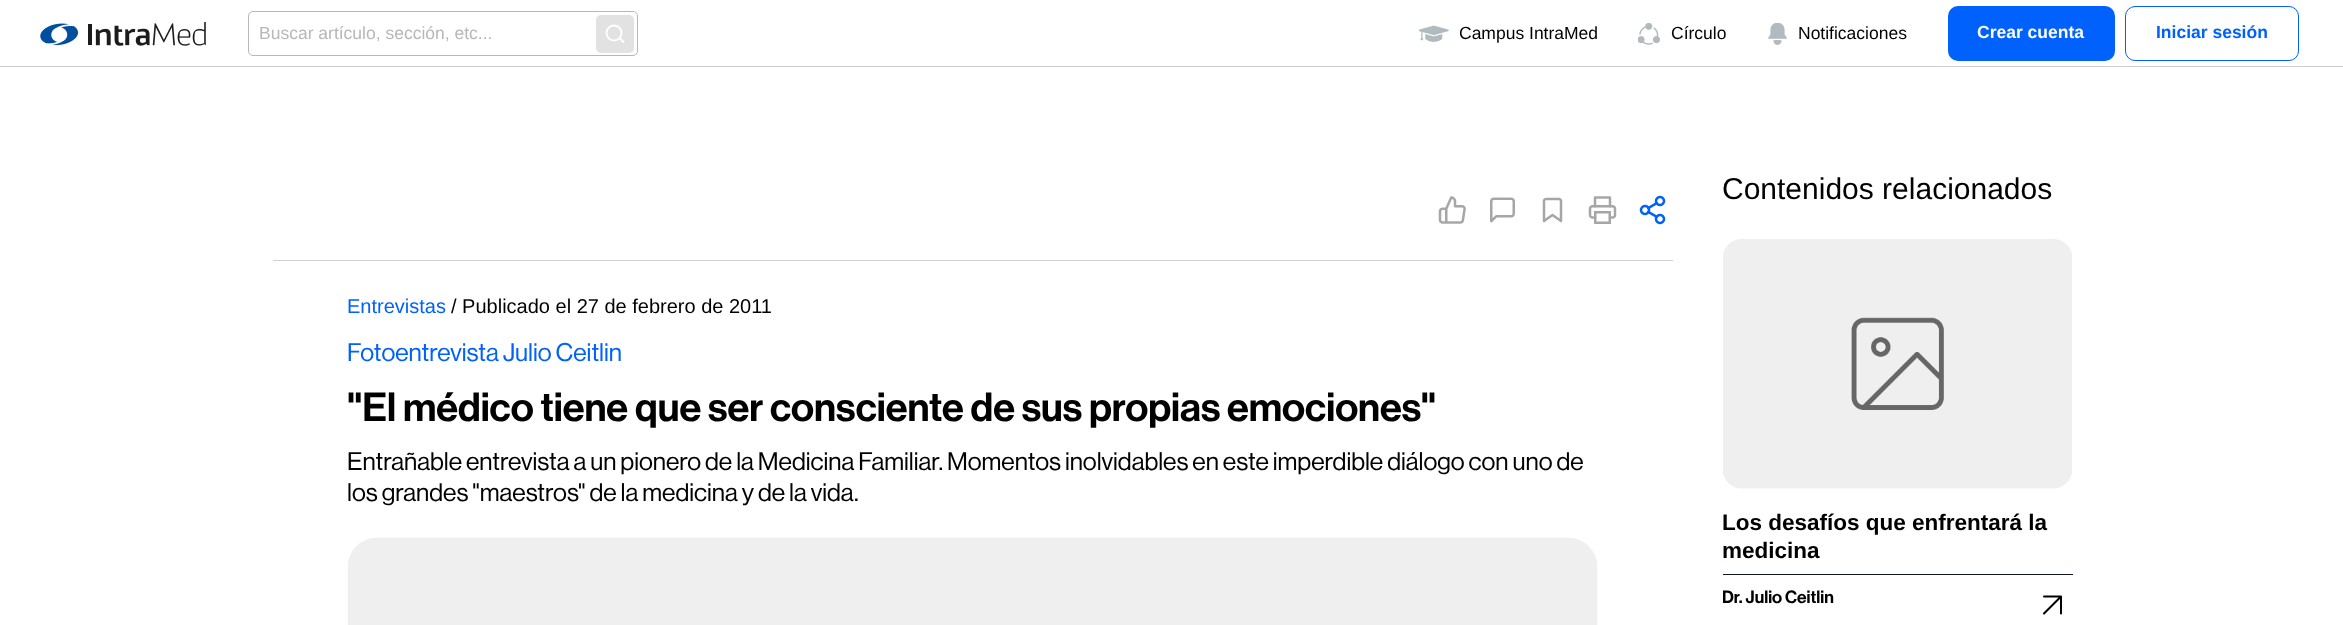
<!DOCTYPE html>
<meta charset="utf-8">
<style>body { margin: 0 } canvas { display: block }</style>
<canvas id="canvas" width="2343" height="625"></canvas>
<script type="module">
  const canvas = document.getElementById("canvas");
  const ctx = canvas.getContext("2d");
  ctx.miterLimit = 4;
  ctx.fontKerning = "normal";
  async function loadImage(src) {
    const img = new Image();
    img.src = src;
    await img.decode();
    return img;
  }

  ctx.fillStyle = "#ffffff";
  ctx.fillRect(0, 0, 2343, 625);
  ctx.fillStyle = "#cdcdcd";
  ctx.fillRect(0, 66, 2343, 1);
  ctx.drawImage(await loadImage("img1.png"), 40, 22, 166, 24);
  ctx.beginPath();
  ctx.roundRect(248.5, 11.5, 389, 44, 4.5);
  ctx.strokeStyle = "#b7b7b7";
  ctx.stroke();
  ctx.font = "17.5px Liberation Sans";
  ctx.fillStyle = "#b7b7b7";
  ctx.fillText("Buscar artículo, sección, etc...", 259, 39);
  ctx.fillStyle = "#e2e2e2";
  ctx.beginPath();
  ctx.roundRect(596, 15, 38, 38, 5);
  ctx.fill();
  ctx.beginPath();
  ctx.arc(614, 33, 7.5, 0, Math.PI * 2);
  ctx.strokeStyle = "#ffffff";
  ctx.lineWidth = 1.9;
  ctx.stroke();
  ctx.beginPath();
  ctx.moveTo(623.5, 42);
  ctx.lineTo(619.5, 38);
  ctx.lineCap = "round";
  ctx.lineJoin = "round";
  ctx.stroke();
  ctx.drawImage(await loadImage("img2.png"), 1419, 25, 30, 17);
  ctx.fillStyle = "#000000";
  ctx.fillText("Campus IntraMed", 1459, 39);
  ctx.drawImage(await loadImage("img3.png"), 1638, 23, 22, 22);
  ctx.fillText("Círculo", 1671, 39);
  ctx.drawImage(await loadImage("img4.png"), 1768, 23, 19, 22);
  ctx.fillText("Notificaciones", 1798, 39);
  ctx.fillStyle = "#0061fc";
  ctx.beginPath();
  ctx.roundRect(1948, 6, 167, 55, 10);
  ctx.fill();
  ctx.font = "bold 17.5px Liberation Sans";
  ctx.fillStyle = "#fdfdfd";
  ctx.fillText("Crear cuenta", 1977, 38);
  ctx.beginPath();
  ctx.roundRect(2125.5, 6.5, 173, 54, 9.5);
  ctx.strokeStyle = "#0061fc";
  ctx.lineWidth = 1;
  ctx.lineJoin = "miter";
  ctx.stroke();
  ctx.fillStyle = "#0061fc";
  ctx.fillText("Iniciar sesión", 2156, 38);
  ctx.drawImage(await loadImage("img5.png"), 1438, 196, 28, 28);
  ctx.drawImage(await loadImage("img6.png"), 1490, 197, 25, 26);
  ctx.beginPath();
  ctx.moveTo(1561, 221);
  ctx.lineTo(1552.5, 215);
  ctx.lineTo(1544, 221);
  ctx.lineTo(1544, 201);
  ctx.bezierCurveTo(1544, 200, 1545, 199, 1546, 199);
  ctx.lineTo(1559, 199);
  ctx.bezierCurveTo(1560, 199, 1561, 200, 1561, 201);
  ctx.closePath();
  ctx.strokeStyle = "#a6a6a6";
  ctx.lineWidth = 2.5;
  ctx.lineJoin = "round";
  ctx.stroke();
  ctx.drawImage(await loadImage("img7.png"), 1588, 196, 29, 28);
  ctx.drawImage(await loadImage("img8.png"), 1639, 195, 27, 30);
  ctx.fillStyle = "#d1d1d1";
  ctx.fillRect(273, 260, 1400, 1);
  ctx.font = "20px Liberation Sans";
  ctx.fillStyle = "#0061fc";
  ctx.fillText("Entrevistas", 347, 313);
  ctx.fillStyle = "#000000";
  ctx.fillText("/ Publicado el 27 de febrero de 2011", 451, 313);
  ctx.font = "500 25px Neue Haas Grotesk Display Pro";
  ctx.fillStyle = "#0061fc";
  ctx.fillText("Fotoentrevista Julio Ceitlin", 347, 361);
  ctx.font = "500 40px 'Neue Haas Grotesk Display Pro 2'";
  ctx.fillStyle = "#000000";
  ctx.fillText("\"El médico tiene que ser consciente de sus propias emociones\"", 347, 421);
  ctx.font = "500 25px Neue Haas Grotesk Display Pro";
  ctx.fillText("Entrañable entrevista a un pionero de la Medicina Familiar. Momentos inolvidables en este imperdible diálogo con uno de", 347, 470);
  ctx.fillText("los grandes \"maestros\" de la medicina y de la vida.", 347, 501);
  ctx.drawImage(await loadImage("img9.png"), 347, 537, 1251, 88);
  ctx.font = "30px Liberation Sans";
  ctx.fillText("Contenidos relacionados", 1722, 199);
  ctx.drawImage(await loadImage("img10.png"), 1723, 239, 349, 250);
  ctx.font = "bold 22.5px Liberation Sans";
  ctx.fillText("Los desafíos que enfrentará la", 1722, 530);
  ctx.fillText("medicina", 1722, 558);
  ctx.fillStyle = "#111827";
  ctx.fillRect(1723, 574, 350, 1);
  ctx.save();
  ctx.beginPath();
  ctx.rect(1723, 585, 310, 25);
  ctx.clip();
  ctx.font = "500 17.5px 'Neue Haas Grotesk Display Pro 2'";
  ctx.fillStyle = "#000000";
  ctx.fillText("Dr. Julio Ceitlin", 1722, 603);
  ctx.restore();
  ctx.beginPath();
  ctx.moveTo(2044, 613.5);
  ctx.lineTo(2061, 596.5);
  ctx.moveTo(2044, 596.5);
  ctx.lineTo(2061, 596.5);
  ctx.lineTo(2061, 613.5);
  ctx.strokeStyle = "#000000";
  ctx.lineWidth = 2;
  ctx.stroke();
</script>
